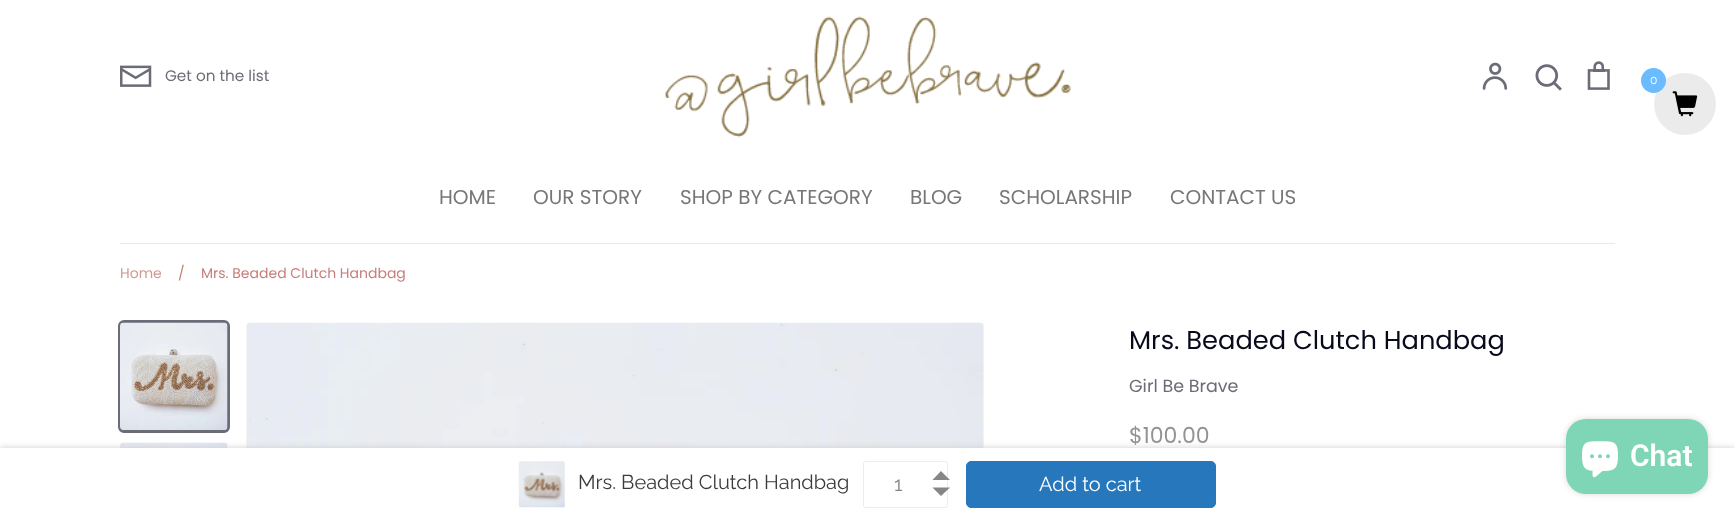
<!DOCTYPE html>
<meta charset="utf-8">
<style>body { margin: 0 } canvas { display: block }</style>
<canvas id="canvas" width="1735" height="520"></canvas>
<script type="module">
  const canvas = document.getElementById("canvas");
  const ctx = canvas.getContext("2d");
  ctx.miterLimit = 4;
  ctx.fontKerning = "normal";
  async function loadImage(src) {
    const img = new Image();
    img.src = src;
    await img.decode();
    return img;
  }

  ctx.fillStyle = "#ffffff";
  ctx.fillRect(0, 0, 1735, 520);
  ctx.drawImage(await loadImage("img1.png"), 120, 65, 32, 22);
  ctx.font = "15.25px Poppins";
  ctx.fillStyle = "#6b6c77";
  ctx.fillText("Get on the list", 165, 81);
  ctx.drawImage(await loadImage("img2.png"), 665, 16, 406, 122);
  ctx.drawImage(await loadImage("img3.png"), 1482, 62, 26, 28);
  ctx.drawImage(await loadImage("img4.png"), 1535, 64, 27, 27);
  ctx.drawImage(await loadImage("img5.png"), 1587, 61, 23, 29);
  ctx.fillStyle = "#e9e9eb";
  ctx.fillRect(120, 243, 1495, 1);
  ctx.font = "20px Poppins";
  ctx.fillStyle = "#777777";
  ctx.fillText("HOME", 439, 204);
  ctx.fillText("OUR STORY", 533, 204);
  ctx.fillText("SHOP BY CATEGORY", 680, 204);
  ctx.fillText("BLOG", 910, 204);
  ctx.fillText("SCHOLARSHIP", 999, 204);
  ctx.fillText("CONTACT US", 1170, 204);
  ctx.fillStyle = "#ebebeb";
  ctx.beginPath();
  ctx.arc(1685, 104, 31, 0, Math.PI * 2);
  ctx.fill();
  ctx.fillStyle = "#6bbbff";
  ctx.beginPath();
  ctx.arc(1653.5, 80.5, 12.5, 0, Math.PI * 2);
  ctx.fill();
  ctx.font = "100 12px Raleway";
  ctx.fillStyle = "#ffffff";
  ctx.fillText("0", 1650, 84);
  ctx.drawImage(await loadImage("img6.png"), 1672, 91, 26, 26);
  ctx.font = "14px Poppins";
  ctx.fillStyle = "#d29895";
  ctx.fillText("Home", 120, 278);
  ctx.fillStyle = "#c77e7a";
  ctx.fillText("/", 178, 278);
  ctx.fillText("Mrs. Beaded Clutch Handbag", 201, 278);
  ctx.beginPath();
  ctx.roundRect(119.5, 321.5, 109, 110, 4.5);
  ctx.strokeStyle = "#6b6c77";
  ctx.lineWidth = 3;
  ctx.stroke();
  ctx.drawImage(await loadImage("img7.png"), 120, 322, 108, 108);
  ctx.drawImage(await loadImage("img8.png"), 120, 442, 108, 6);
  ctx.drawImage(await loadImage("img9.png"), 246, 322, 738, 126);
  ctx.font = "25.7px Poppins";
  ctx.fillStyle = "#080a1c";
  ctx.fillText("Mrs. Beaded Clutch Handbag", 1129, 349);
  ctx.font = "17.5px Poppins";
  ctx.fillStyle = "#6b6c77";
  ctx.fillText("Girl Be Brave", 1129, 392);
  ctx.font = "22px Poppins";
  ctx.fillStyle = "#939393";
  ctx.fillText("$100.00", 1129, 443);
  ctx.fillStyle = "#cdcdcd";
  ctx.filter = "blur(3px)";
  ctx.beginPath();
  ctx.rect(0, 448, 1735, 72);
  ctx.fill();
  ctx.filter = "none";
  ctx.fillStyle = "#ffffff";
  ctx.fillRect(0, 448, 1735, 72);
  ctx.fillStyle = "rgba(0, 0, 0, 0.15)";
  ctx.filter = "blur(3px)";
  ctx.beginPath();
  ctx.roundRect(1566, 419, 142, 75, 20);
  ctx.fill();
  ctx.filter = "none";
  ctx.fillStyle = "#7ed6b6";
  ctx.beginPath();
  ctx.roundRect(1566, 419, 142, 75, 20);
  ctx.fill();
  ctx.drawImage(await loadImage("img10.png"), 1582, 441, 36, 37);
  ctx.font = "600 30px Roboto";
  ctx.fillStyle = "#ffffff";
  ctx.fillText("Chat", 1630, 466);
  ctx.drawImage(await loadImage("img11.png"), 518, 461, 47, 47);
  ctx.font = "100 20px Raleway";
  ctx.fillStyle = "#3b3b3b";
  ctx.fillText("Mrs. Beaded Clutch Handbag", 578, 489);
  ctx.beginPath();
  ctx.roundRect(863.5, 461.5, 84, 46, 2);
  ctx.strokeStyle = "#ececec";
  ctx.lineWidth = 1;
  ctx.stroke();
  ctx.fillStyle = "#868686";
  ctx.fillText("1", 894, 491);
  ctx.beginPath();
  ctx.moveTo(950, 480);
  ctx.lineTo(932.5, 480);
  ctx.lineTo(941, 471);
  ctx.closePath();
  ctx.moveTo(932.5, 487.5);
  ctx.lineTo(950, 487.5);
  ctx.lineTo(941, 496);
  ctx.closePath();
  ctx.fill();
  ctx.fillStyle = "#2777bc";
  ctx.beginPath();
  ctx.roundRect(966.5, 461.5, 249, 46, 4.5);
  ctx.fill();
  ctx.strokeStyle = "#2777bc";
  ctx.stroke();
  ctx.fillStyle = "#ffffff";
  ctx.fillText("Add to cart", 1039, 491);
</script>
